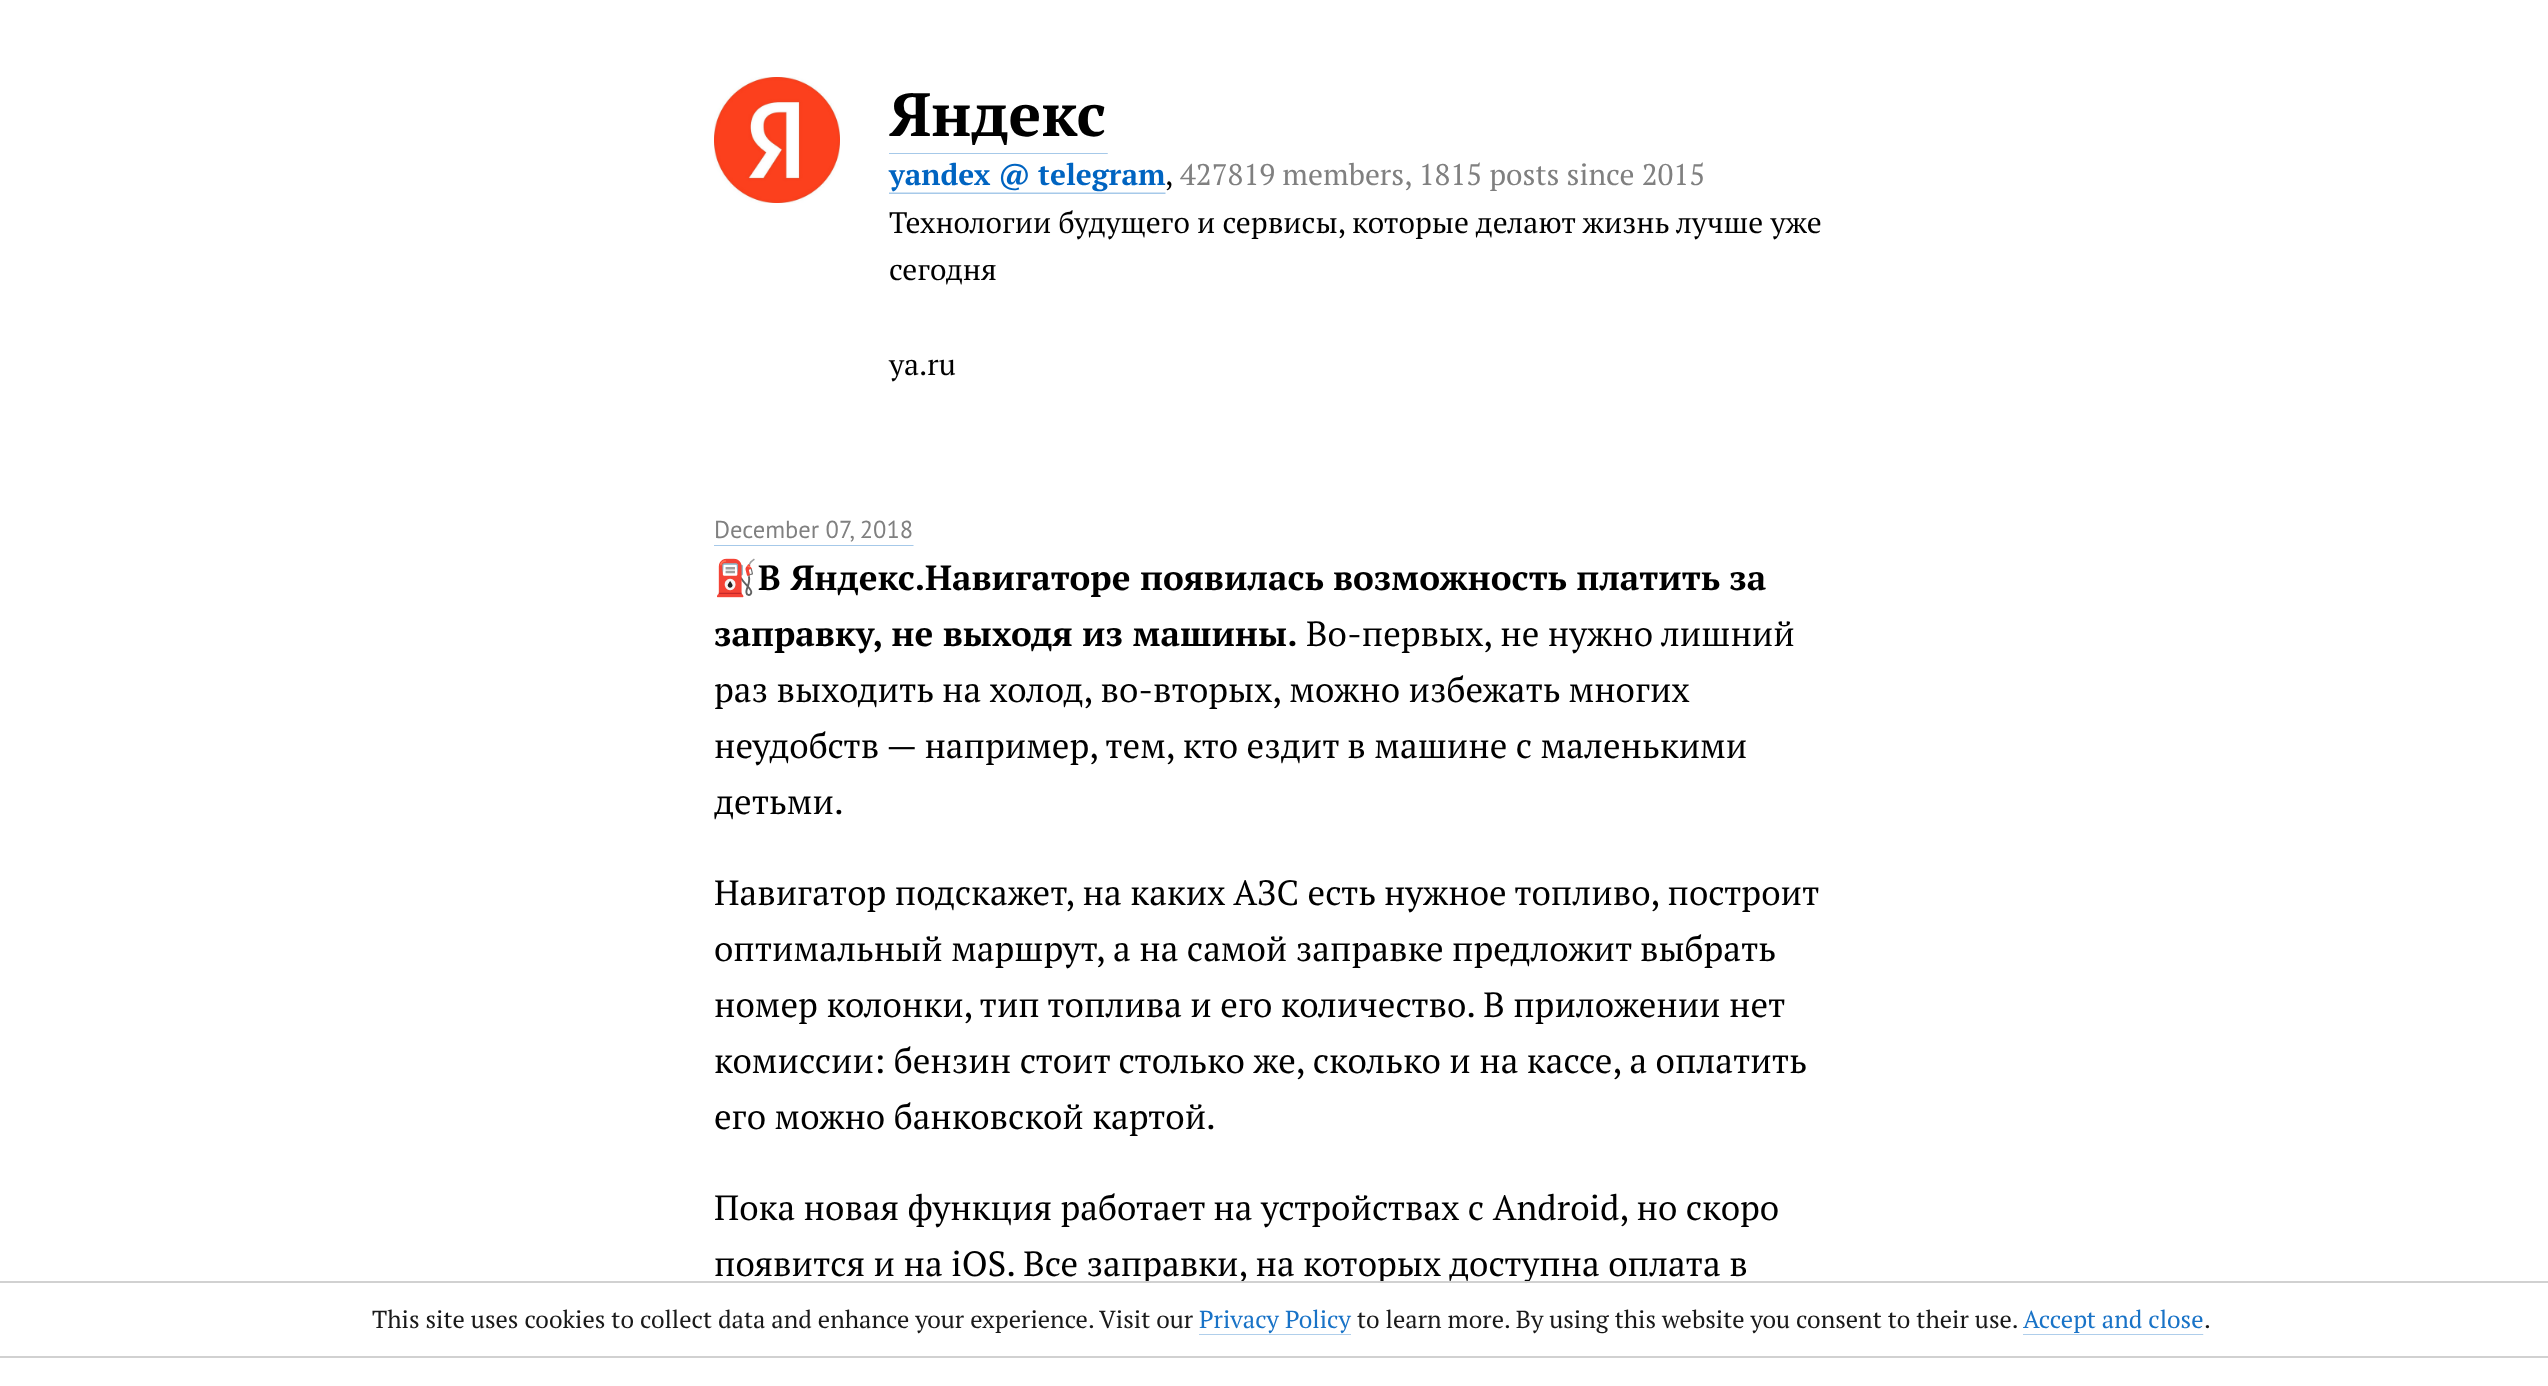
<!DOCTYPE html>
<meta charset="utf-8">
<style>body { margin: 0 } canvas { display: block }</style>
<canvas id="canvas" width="2548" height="1386"></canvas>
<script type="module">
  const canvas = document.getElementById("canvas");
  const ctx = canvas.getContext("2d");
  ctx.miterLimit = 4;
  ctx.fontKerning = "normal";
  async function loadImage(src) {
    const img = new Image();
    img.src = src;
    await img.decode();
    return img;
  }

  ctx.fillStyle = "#ffffff";
  ctx.fillRect(0, 0, 2548, 1386);
  ctx.drawImage(await loadImage("img1.png"), 714, 77, 126, 126);
  ctx.font = "bold 61px PT Serif";
  ctx.fillStyle = "#000000";
  ctx.fillText("Яндекс", 889, 136);
  ctx.drawImage(await loadImage("img2.png"), 889, 153, 219, 1);
  ctx.font = "bold 29.75px PT Serif";
  ctx.fillStyle = "#0064c1";
  ctx.fillText("yandex @ telegram", 889, 185);
  ctx.font = "29.75px PT Serif";
  ctx.fillStyle = "#000000";
  ctx.fillText(",", 1165, 185);
  ctx.fillStyle = "#808080";
  ctx.fillText("427819 members, 1815 posts since 2015", 1180, 185);
  ctx.drawImage(await loadImage("img3.png"), 889, 192, 277, 2);
  ctx.fillStyle = "#000000";
  ctx.fillText("Технологии будущего и сервисы, которые делают жизнь лучше уже", 889, 233);
  ctx.fillText("сегодня", 889, 280);
  ctx.fillText("ya.ru", 889, 375);
  ctx.font = "24.5px PT Sans";
  ctx.fillStyle = "#808080";
  ctx.fillText("December 07, 2018", 714, 538);
  ctx.drawImage(await loadImage("img4.png"), 714, 545, 200, 1);
  ctx.font = "35px Noto Color Emoji";
  ctx.fillStyle = "#000000";
  ctx.fillText("⛽️", 714, 590);
  ctx.font = "bold 35px PT Serif";
  ctx.fillText("В Яндекс.Навигаторе появилась возможность платить за", 758, 590);
  ctx.fillText("заправку, не выходя из машины.", 714, 646);
  ctx.font = "35px PT Serif";
  ctx.fillText("Во-первых, не нужно лишний", 1306, 646);
  ctx.fillText("раз выходить на холод, во-вторых, можно избежать многих", 714, 702);
  ctx.fillText("неудобств — например, тем, кто ездит в машине с маленькими", 714, 758);
  ctx.fillText("детьми.", 714, 814);
  ctx.fillText("Навигатор подскажет, на каких АЗС есть нужное топливо, построит", 714, 905);
  ctx.fillText("оптимальный маршрут, а на самой заправке предложит выбрать", 714, 961);
  ctx.fillText("номер колонки, тип топлива и его количество. В приложении нет", 714, 1017);
  ctx.fillText("комиссии: бензин стоит столько же, сколько и на кассе, а оплатить", 714, 1073);
  ctx.fillText("его можно банковской картой.", 714, 1129);
  ctx.fillText("Пока новая функция работает на устройствах с Android, но скоро", 714, 1220);
  ctx.fillText("появится и на iOS. Все заправки, на которых доступна оплата в", 714, 1276);
  ctx.fillStyle = "rgba(255, 255, 255, 0.9)";
  ctx.fillRect(1143, 1281, 387, 3);
  ctx.fillStyle = "rgba(204, 204, 204, 0.9)";
  ctx.fillRect(0, 1281, 2548, 2);
  ctx.fillStyle = "#d1d1d1";
  ctx.fillRect(0, 1356, 2548, 2);
  ctx.font = "24.5px PT Serif";
  ctx.fillStyle = "#191919";
  ctx.fillText("This site uses cookies to collect data and enhance your experience. Visit our", 372, 1328);
  ctx.fillStyle = "#1973c7";
  ctx.fillText("Privacy Policy", 1199, 1328);
  ctx.fillStyle = "rgba(0, 99, 191, 0.31)";
  ctx.fillRect(1199, 1334, 152, 1);
  ctx.fillStyle = "#191919";
  ctx.fillText("to learn more. By using this website you consent to their use.", 1357, 1328);
  ctx.fillStyle = "#1973c7";
  ctx.fillText("Accept and close", 2023, 1328);
  ctx.fillStyle = "#191919";
  ctx.fillText(".", 2204, 1328);
  ctx.drawImage(await loadImage("img5.png"), 2023, 1334, 181, 1);
</script>
